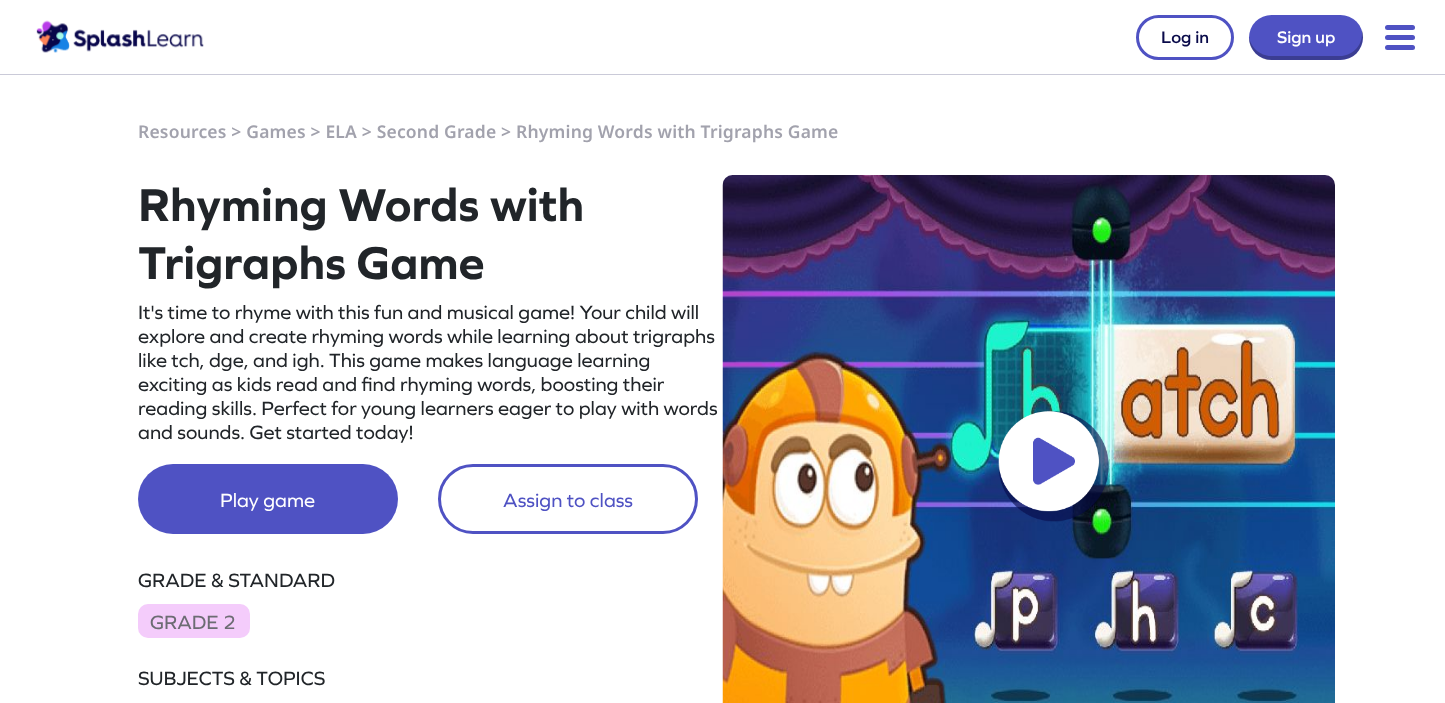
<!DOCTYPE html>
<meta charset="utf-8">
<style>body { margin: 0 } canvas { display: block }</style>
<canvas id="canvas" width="1445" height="703"></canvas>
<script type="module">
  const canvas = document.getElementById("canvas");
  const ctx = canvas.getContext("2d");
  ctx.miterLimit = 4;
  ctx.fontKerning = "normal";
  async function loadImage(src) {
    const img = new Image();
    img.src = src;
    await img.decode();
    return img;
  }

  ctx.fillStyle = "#ffffff";
  ctx.fillRect(0, 0, 1445, 703);
  ctx.fillStyle = "#cacad8";
  ctx.fillRect(0, 74, 1445, 1);
  ctx.drawImage(await loadImage("img1.png"), 36, 20, 168, 33);
  ctx.beginPath();
  ctx.roundRect(1137.5, 16.5, 95, 42, 21);
  ctx.strokeStyle = "#4f52c3";
  ctx.lineWidth = 3;
  ctx.stroke();
  ctx.font = "600 17.5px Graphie";
  ctx.fillStyle = "#090a4a";
  ctx.fillText("Log in", 1161, 43);
  ctx.fillStyle = "#4f52c3";
  ctx.beginPath();
  ctx.roundRect(1249, 15, 114, 45, 22.5);
  ctx.fill();
  ctx.fillStyle = "rgba(0, 0, 0, 0.25)";
  ctx.beginPath();
  ctx.moveTo(1249, 36);
  ctx.bezierCurveTo(1248, 47, 1256, 57, 1267, 60);
  ctx.lineTo(1329, 60);
  ctx.bezierCurveTo(1342, 60, 1355, 61, 1361, 46);
  ctx.bezierCurveTo(1363, 41, 1364, 35, 1362, 30);
  ctx.lineTo(1362, 34);
  ctx.bezierCurveTo(1362, 46, 1352, 56, 1340, 56);
  ctx.lineTo(1271, 56);
  ctx.bezierCurveTo(1260, 56, 1250, 47, 1249, 36);
  ctx.closePath();
  ctx.fill();
  ctx.fillStyle = "#ffffff";
  ctx.fillText("Sign up", 1277, 43);
  ctx.fillStyle = "#4f52c3";
  ctx.beginPath();
  ctx.roundRect(1385, 25, 30, 5, 2.5);
  ctx.fill();
  ctx.beginPath();
  ctx.roundRect(1385, 35, 30, 5, 2.5);
  ctx.fill();
  ctx.beginPath();
  ctx.roundRect(1385, 45, 30, 5, 2.5);
  ctx.fill();
  ctx.letterSpacing = "0.18px";
  ctx.font = "600 17.5px Noto Sans";
  ctx.fillStyle = "#a2a2ad";
  ctx.fillText("Resources > Games > ELA > Second Grade > Rhyming Words with Trigraphs Game", 138, 138);
  ctx.letterSpacing = "0px";
  ctx.font = "bold 48px Graphie";
  ctx.fillStyle = "#212529";
  ctx.fillText("Rhyming Words with", 138, 221);
  ctx.fillText("Trigraphs Game", 138, 279);
  ctx.font = "20px Graphie";
  ctx.fillText("It's time to rhyme with this fun and musical game! Your child will", 138, 319);
  ctx.fillText("explore and create rhyming words while learning about trigraphs", 138, 343);
  ctx.fillText("like tch, dge, and igh. This game makes language learning", 138, 367);
  ctx.fillText("exciting as kids read and find rhyming words, boosting their", 138, 391);
  ctx.fillText("reading skills. Perfect for young learners eager to play with words", 138, 415);
  ctx.fillText("and sounds. Get started today!", 138, 439);
  ctx.fillStyle = "#4f52c3";
  ctx.beginPath();
  ctx.roundRect(138, 464, 260, 70, 35);
  ctx.fill();
  ctx.fillStyle = "#ffffff";
  ctx.fillText("Play game", 220, 507);
  ctx.beginPath();
  ctx.roundRect(439.5, 465.5, 257, 67, 33.5);
  ctx.stroke();
  ctx.fillStyle = "#4f52c3";
  ctx.fillText("Assign to class", 503, 507);
  ctx.fillStyle = "#212529";
  ctx.fillText("GRADE & STANDARD", 138, 587);
  ctx.fillStyle = "#f4ccfb";
  ctx.beginPath();
  ctx.roundRect(138, 604, 112, 34, 10);
  ctx.fill();
  ctx.fillStyle = "#6c6c73";
  ctx.fillText("GRADE 2", 150, 629);
  ctx.fillStyle = "#212529";
  ctx.fillText("SUBJECTS & TOPICS", 138, 685);
  ctx.drawImage(await loadImage("img2.png"), 722, 175, 613, 528);
  ctx.drawImage(await loadImage("img3.png"), 998, 411, 111, 111);
</script>
